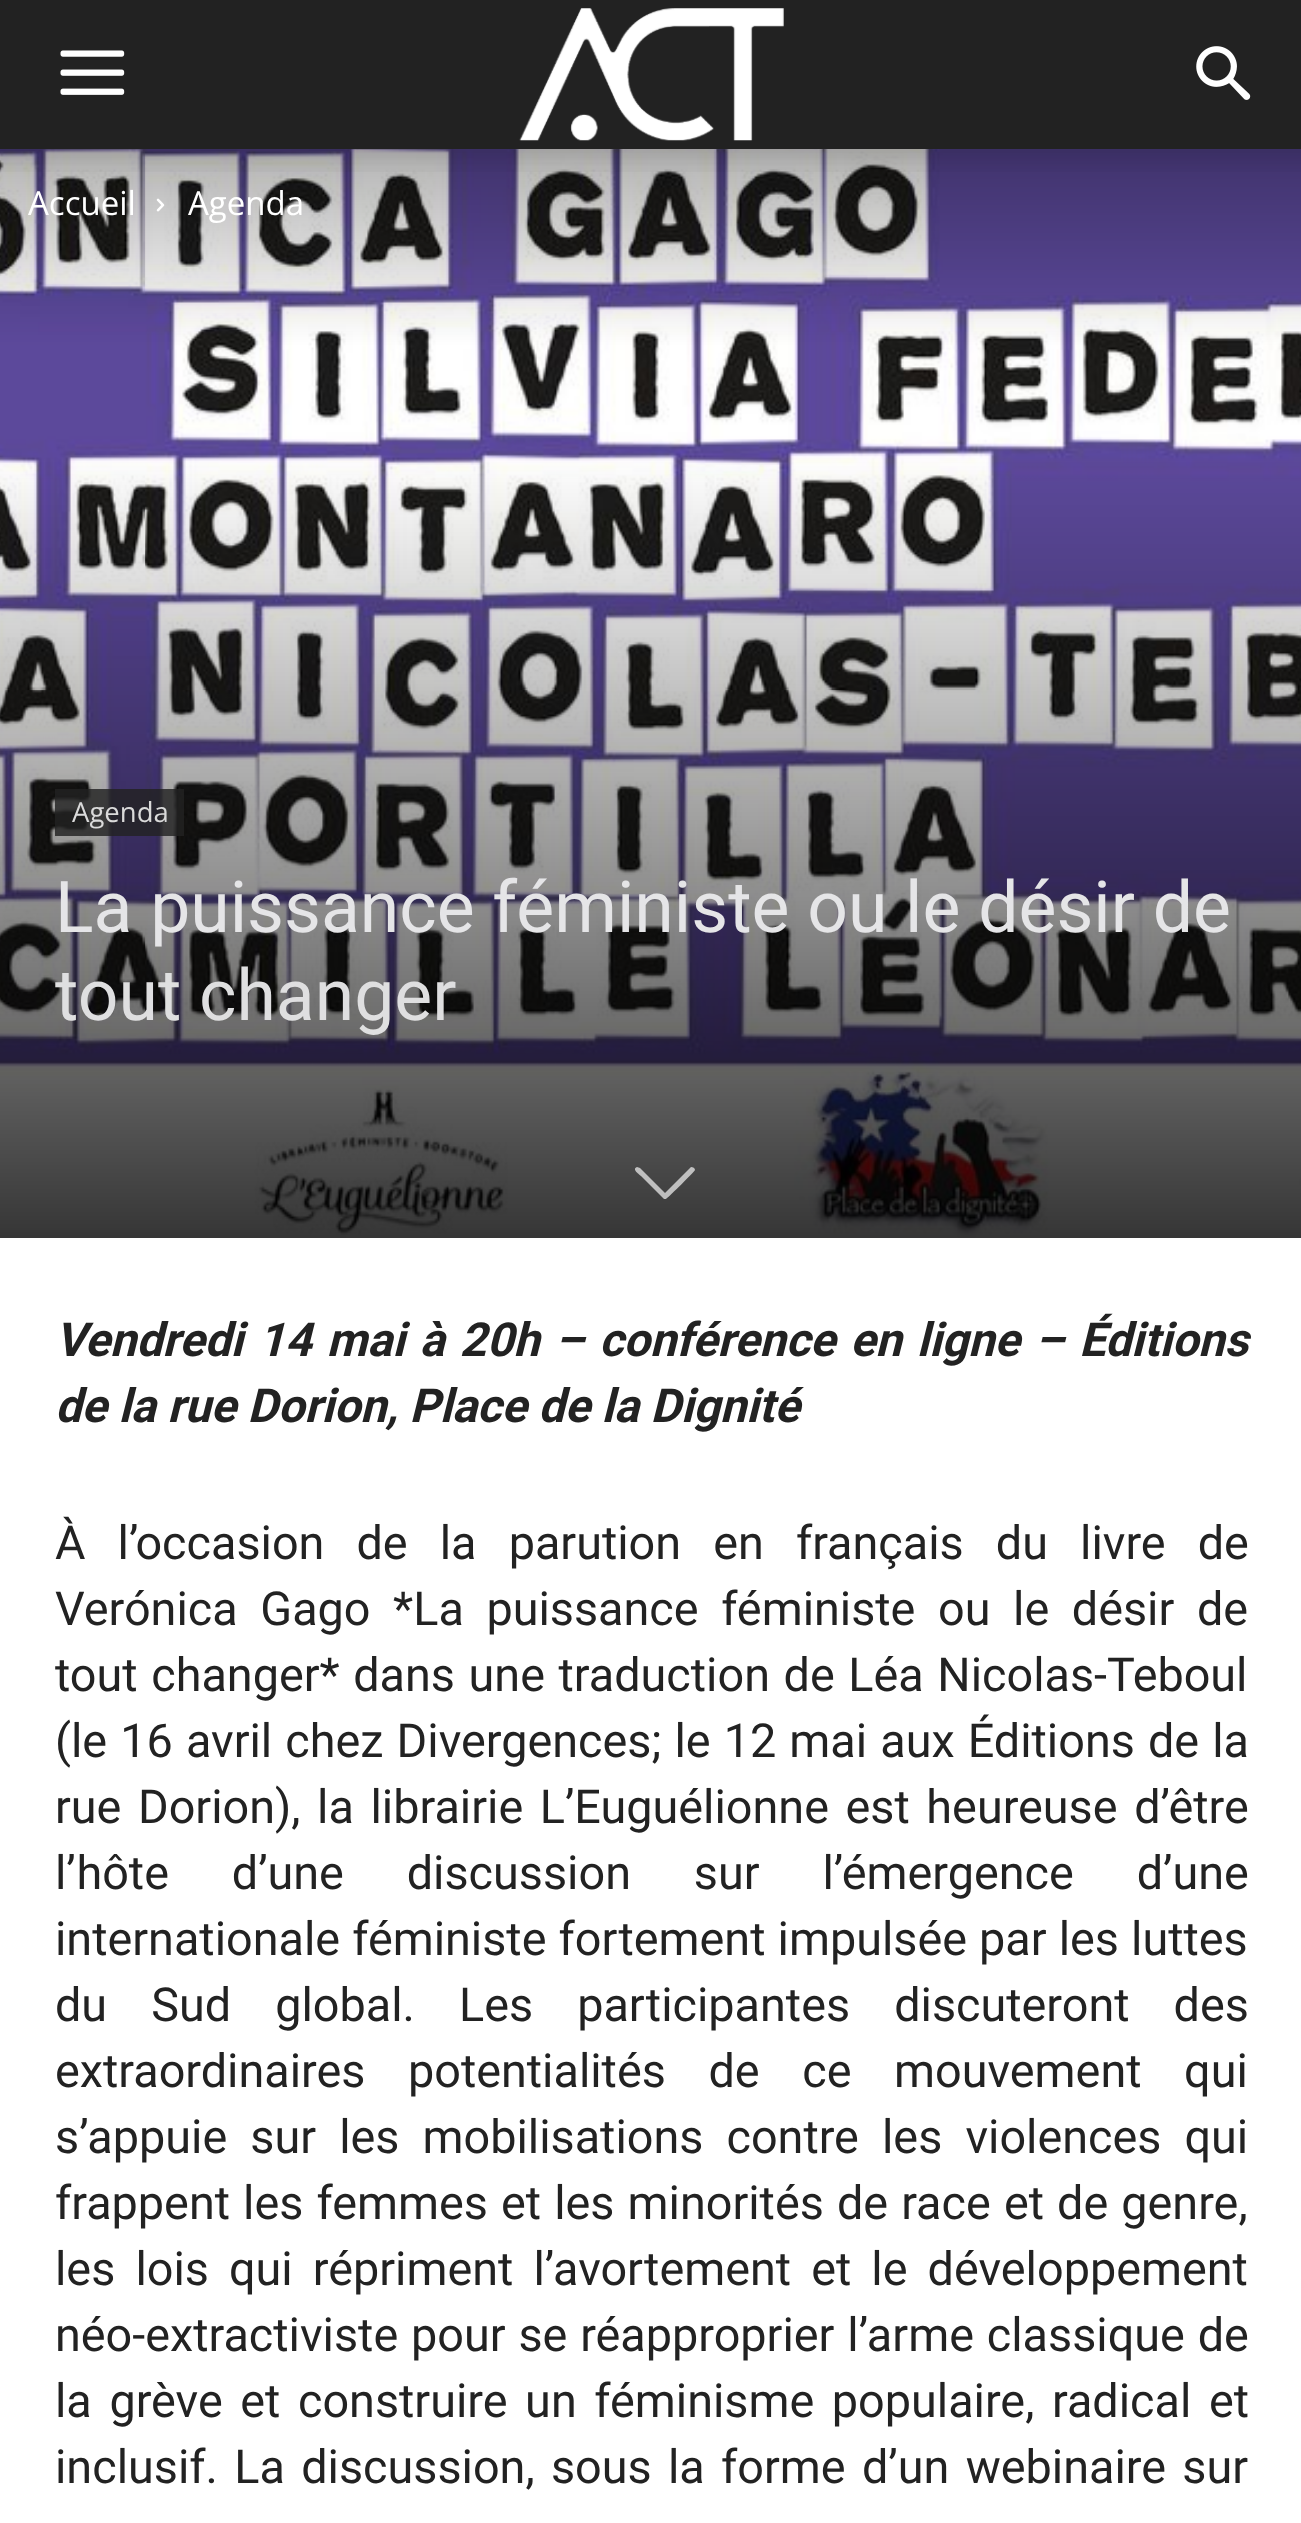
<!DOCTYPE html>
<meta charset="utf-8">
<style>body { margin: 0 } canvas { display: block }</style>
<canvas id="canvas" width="1301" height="2523"></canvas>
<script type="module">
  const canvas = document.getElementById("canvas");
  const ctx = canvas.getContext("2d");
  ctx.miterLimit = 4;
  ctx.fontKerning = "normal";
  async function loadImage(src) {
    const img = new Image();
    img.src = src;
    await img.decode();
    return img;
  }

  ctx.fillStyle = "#ffffff";
  ctx.fillRect(0, 0, 1301, 2523);
  ctx.fillStyle = "#222222";
  ctx.fillRect(0, 0, 1301, 149);
  ctx.drawImage(await loadImage("img1.png"), 60, 50, 65, 45);
  ctx.drawImage(await loadImage("img2.png"), 519, 8, 265, 133);
  ctx.drawImage(await loadImage("img3.png"), 1196, 46, 55, 54);
  ctx.drawImage(await loadImage("img5.png"), 0, 149, 1301, 1089);
  ctx.drawImage(await loadImage("img4.png"), 0, 149, 1301, 23);
  ctx.font = "33px Open Sans";
  ctx.fillStyle = "#ffffff";
  ctx.fillText("Accueil", 28, 215);
  ctx.drawImage(await loadImage("img6.png"), 156, 198, 9, 14);
  ctx.fillText("Agenda", 188, 215);
  ctx.fillStyle = "rgba(34, 34, 34, 0.82)";
  ctx.fillRect(55, 789, 129, 47);
  ctx.font = "27.5px Open Sans";
  ctx.fillStyle = "#dadada";
  ctx.fillText("Agenda", 72, 822);
  ctx.font = "71.5px Roboto";
  ctx.fillStyle = "#e5e5e7";
  ctx.fillText("La puissance féministe ou le désir de", 55, 932);
  ctx.fillStyle = "#dfdfe0";
  ctx.fillText("tout changer", 55, 1020);
  ctx.fillStyle = "rgba(255, 255, 255, 0.66)";
  ctx.beginPath();
  ctx.moveTo(640, 1168);
  ctx.lineTo(665, 1193);
  ctx.lineTo(691, 1167);
  ctx.bezierCurveTo(693, 1167, 695, 1168, 695, 1170);
  ctx.bezierCurveTo(695, 1171, 669, 1197, 666, 1199);
  ctx.lineTo(664, 1199);
  ctx.lineTo(641, 1176);
  ctx.bezierCurveTo(640, 1175, 631, 1169, 637, 1167);
  ctx.closePath();
  ctx.fill();
  ctx.wordSpacing = "3.4px";
  ctx.font = "italic bold 46.75px Roboto";
  ctx.fillStyle = "#222222";
  ctx.fillText("Vendredi 14 mai à 20h – conférence en ligne – Éditions", 55, 1356);
  ctx.wordSpacing = "0px";
  ctx.fillText("de la rue Dorion, Place de la Dignité", 55, 1422);
  ctx.wordSpacing = "20.5px";
  ctx.font = "46.75px Roboto";
  ctx.fillText("À l’occasion de la parution en français du livre de", 55, 1559);
  ctx.wordSpacing = "11px";
  ctx.fillText("Verónica Gago *La puissance féministe ou le désir de", 55, 1625);
  ctx.wordSpacing = "2px";
  ctx.fillText("tout changer* dans une traduction de Léa Nicolas-Teboul", 55, 1691);
  ctx.wordSpacing = "1.5px";
  ctx.fillText("(le 16 avril chez Divergences; le 12 mai aux Éditions de la", 55, 1757);
  ctx.wordSpacing = "5px";
  ctx.fillText("rue Dorion), la librairie L’Euguélionne est heureuse d’être", 55, 1823);
  ctx.wordSpacing = "51.25px";
  ctx.fillText("l’hôte d’une discussion sur l’émergence d’une", 55, 1889);
  ctx.wordSpacing = "0.5px";
  ctx.fillText("internationale féministe fortement impulsée par les luttes", 55, 1955);
  ctx.wordSpacing = "32.5px";
  ctx.fillText("du Sud global. Les participantes discuteront des", 55, 2021);
  ctx.wordSpacing = "31px";
  ctx.fillText("extraordinaires potentialités de ce mouvement qui", 55, 2087);
  ctx.wordSpacing = "11.5px";
  ctx.fillText("s’appuie sur les mobilisations contre les violences qui", 55, 2153);
  ctx.wordSpacing = "1.5px";
  ctx.fillText("frappent les femmes et les minorités de race et de genre,", 55, 2219);
  ctx.wordSpacing = "8.5px";
  ctx.fillText("les lois qui répriment l’avortement et le développement", 55, 2285);
  ctx.wordSpacing = "1.25px";
  ctx.fillText("néo-extractiviste pour se réapproprier l’arme classique de", 55, 2351);
  ctx.wordSpacing = "6px";
  ctx.fillText("la grève et construire un féminisme populaire, radical et", 55, 2417);
  ctx.wordSpacing = "4.75px";
  ctx.fillText("inclusif. La discussion, sous la forme d’un webinaire sur", 55, 2483);
</script>
